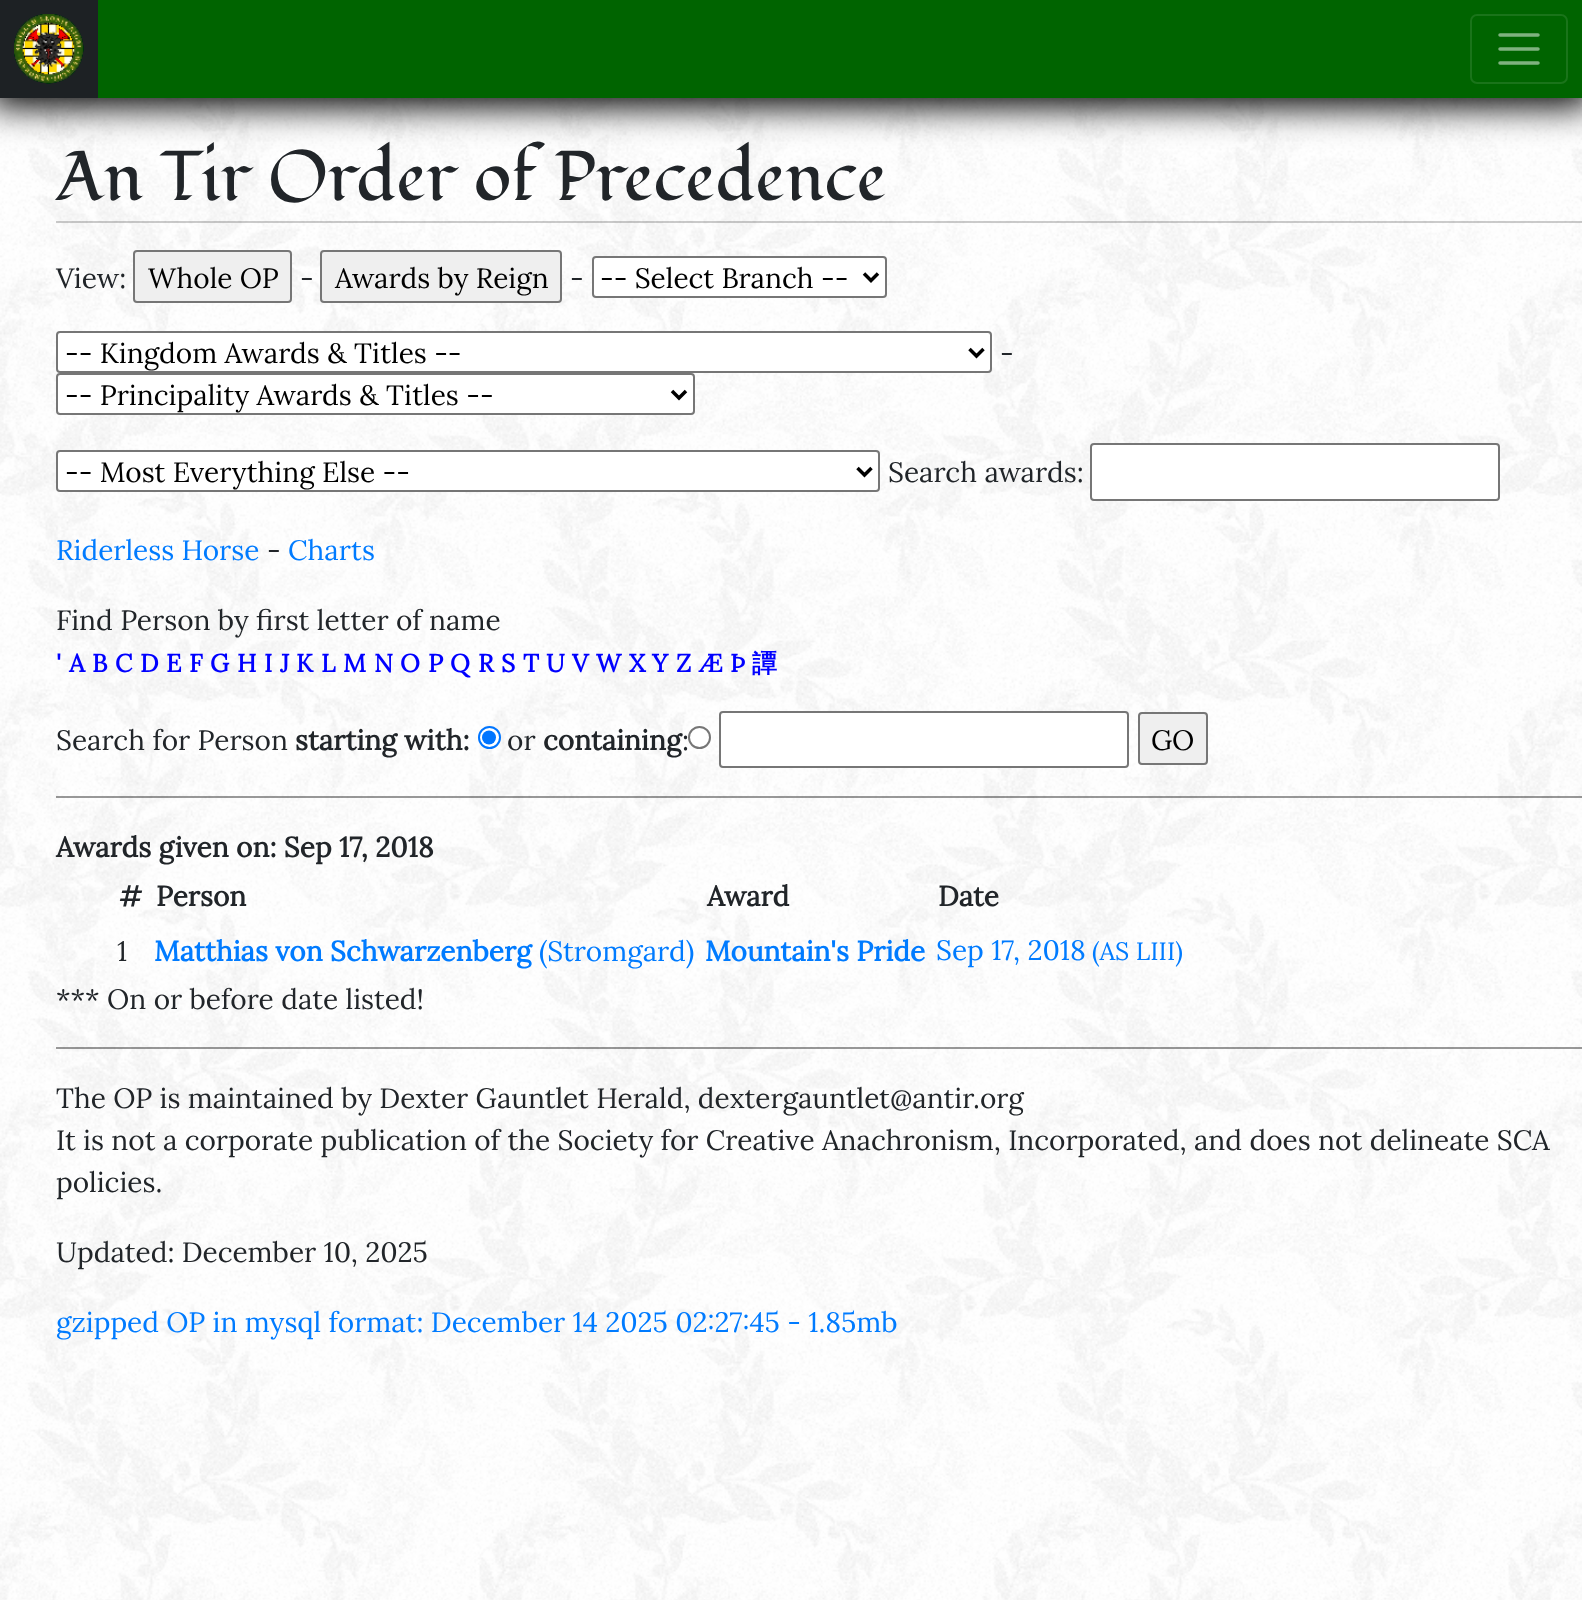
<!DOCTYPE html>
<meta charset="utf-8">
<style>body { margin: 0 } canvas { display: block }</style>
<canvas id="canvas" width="1582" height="1600"></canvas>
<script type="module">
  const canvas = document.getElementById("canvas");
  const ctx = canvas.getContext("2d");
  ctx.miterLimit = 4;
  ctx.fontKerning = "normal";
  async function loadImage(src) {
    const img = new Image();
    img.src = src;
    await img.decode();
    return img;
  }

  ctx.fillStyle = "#ffffff";
  ctx.fillRect(0, 0, 1582, 1600);
  ctx.drawImage(await loadImage("img1.png"), 0, 98, 1582, 1502);
  ctx.fillStyle = "#000000";
  ctx.filter = "blur(17.5px)";
  ctx.beginPath();
  ctx.rect(-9, -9, 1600, 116);
  ctx.fill();
  ctx.filter = "none";
  ctx.fillStyle = "#006400";
  ctx.fillRect(98, 0, 1484, 98);
  ctx.fillStyle = "#1d2124";
  ctx.fillRect(0, 0, 98, 98);
  ctx.drawImage(await loadImage("img2.png"), 14, 14, 70, 70);
  ctx.beginPath();
  ctx.roundRect(1471, 15, 96, 68, 6);
  ctx.strokeStyle = "#1a741a";
  ctx.lineWidth = 2;
  ctx.stroke();
  ctx.beginPath();
  ctx.moveTo(1500, 35);
  ctx.lineTo(1538, 35);
  ctx.moveTo(1500, 49);
  ctx.lineTo(1538, 49);
  ctx.moveTo(1500, 63);
  ctx.lineTo(1538, 63);
  ctx.strokeStyle = "#80b280";
  ctx.lineWidth = 3.5;
  ctx.lineCap = "round";
  ctx.stroke();
  ctx.fillStyle = "rgba(0, 0, 0, 0.2)";
  ctx.fillRect(56, 221, 1526, 2);
  ctx.font = "70px Fondamento";
  ctx.fillStyle = "#212529";
  ctx.fillText("An Tir Order of Precedence", 56, 200);
  ctx.font = "28px Lora";
  ctx.fillText("View:", 56, 288);
  ctx.fillStyle = "#efefef";
  ctx.beginPath();
  ctx.roundRect(134, 251, 157, 51, 3);
  ctx.fill();
  ctx.strokeStyle = "#767676";
  ctx.lineWidth = 2;
  ctx.stroke();
  ctx.fillStyle = "#000000";
  ctx.fillText("Whole OP", 148, 288);
  ctx.fillStyle = "#212529";
  ctx.fillText("-", 300, 288);
  ctx.fillStyle = "#efefef";
  ctx.beginPath();
  ctx.roundRect(321, 251, 240, 51, 3);
  ctx.fill();
  ctx.stroke();
  ctx.fillStyle = "#000000";
  ctx.fillText("Awards by Reign", 335, 288);
  ctx.fillStyle = "#212529";
  ctx.fillText("-", 570, 288);
  ctx.fillStyle = "#ffffff";
  ctx.beginPath();
  ctx.roundRect(593, 257, 293, 40, 3);
  ctx.fill();
  ctx.stroke();
  ctx.beginPath();
  ctx.moveTo(864, 273.5);
  ctx.lineTo(871, 280.5);
  ctx.lineTo(878, 273.5);
  ctx.strokeStyle = "#000000";
  ctx.lineWidth = 3.5;
  ctx.lineCap = "butt";
  ctx.stroke();
  ctx.fillStyle = "#000000";
  ctx.fillText("-- Select Branch --", 600, 288);
  ctx.fillStyle = "#ffffff";
  ctx.beginPath();
  ctx.roundRect(57, 332, 934, 40, 3);
  ctx.fill();
  ctx.strokeStyle = "#767676";
  ctx.lineWidth = 2;
  ctx.stroke();
  ctx.beginPath();
  ctx.moveTo(969.5, 349);
  ctx.lineTo(976.5, 356);
  ctx.lineTo(983.5, 349);
  ctx.strokeStyle = "#000000";
  ctx.lineWidth = 3.5;
  ctx.stroke();
  ctx.fillStyle = "#000000";
  ctx.fillText("-- Kingdom Awards & Titles --", 65, 363);
  ctx.fillStyle = "#212529";
  ctx.fillText("-", 1000, 363);
  ctx.fillStyle = "#ffffff";
  ctx.beginPath();
  ctx.roundRect(57, 374, 637, 40, 3);
  ctx.fill();
  ctx.strokeStyle = "#767676";
  ctx.lineWidth = 2;
  ctx.stroke();
  ctx.beginPath();
  ctx.moveTo(672, 391);
  ctx.lineTo(679, 398);
  ctx.lineTo(686, 391);
  ctx.strokeStyle = "#000000";
  ctx.lineWidth = 3.5;
  ctx.stroke();
  ctx.fillStyle = "#000000";
  ctx.fillText("-- Principality Awards & Titles --", 65, 405);
  ctx.fillStyle = "#ffffff";
  ctx.beginPath();
  ctx.roundRect(57, 451, 822, 40, 3);
  ctx.fill();
  ctx.strokeStyle = "#767676";
  ctx.lineWidth = 2;
  ctx.stroke();
  ctx.beginPath();
  ctx.moveTo(857.5, 468);
  ctx.lineTo(864.5, 475);
  ctx.lineTo(871.5, 468);
  ctx.strokeStyle = "#000000";
  ctx.lineWidth = 3.5;
  ctx.stroke();
  ctx.fillStyle = "#000000";
  ctx.fillText("-- Most Everything Else --", 65, 482);
  ctx.fillStyle = "#212529";
  ctx.fillText("Search awards:", 888, 482);
  ctx.fillStyle = "#ffffff";
  ctx.beginPath();
  ctx.roundRect(1091, 444, 408, 56, 3);
  ctx.fill();
  ctx.strokeStyle = "#767676";
  ctx.lineWidth = 2;
  ctx.stroke();
  ctx.fillStyle = "#007bff";
  ctx.fillText("Riderless Horse", 56, 560);
  ctx.fillStyle = "#212529";
  ctx.fillText("-", 267, 560);
  ctx.fillStyle = "#007bff";
  ctx.fillText("Charts", 288, 560);
  ctx.fillStyle = "#212529";
  ctx.fillText("Find Person by first letter of name", 56, 630);
  ctx.font = "bold 25px Lora";
  ctx.fillStyle = "#0000ff";
  ctx.fillText("'", 56, 672);
  ctx.fillText("A", 69, 672);
  ctx.fillText("B", 92, 672);
  ctx.fillText("C", 115, 672);
  ctx.fillText("D", 140, 672);
  ctx.fillText("E", 166, 672);
  ctx.fillText("F", 189, 672);
  ctx.fillText("G", 210, 672);
  ctx.fillText("H", 237, 672);
  ctx.fillText("I", 264, 672);
  ctx.fillText("J", 280, 672);
  ctx.fillText("K", 296, 672);
  ctx.fillText("L", 321, 672);
  ctx.fillText("M", 343, 672);
  ctx.fillText("N", 374, 672);
  ctx.fillText("O", 400, 672);
  ctx.fillText("P", 428, 672);
  ctx.fillText("Q", 450, 672);
  ctx.fillText("R", 478, 672);
  ctx.fillText("S", 501, 672);
  ctx.fillText("T", 523, 672);
  ctx.fillText("U", 546, 672);
  ctx.fillText("V", 572, 672);
  ctx.fillText("W", 596, 672);
  ctx.fillText("X", 629, 672);
  ctx.fillText("Y", 652, 672);
  ctx.fillText("Z", 676, 672);
  ctx.fillText("Æ", 699, 672);
  ctx.fillText("Þ", 730, 672);
  ctx.font = "bold 25px WenQuanYi Zen Hei";
  ctx.fillText("譚", 752, 672);
  ctx.font = "28px Lora";
  ctx.fillStyle = "#212529";
  ctx.fillText("Search for Person", 56, 750);
  ctx.font = "bold 28px Lora";
  ctx.fillText("starting with:", 295, 750);
  ctx.fillStyle = "#ffffff";
  ctx.beginPath();
  ctx.arc(489.5, 737.5, 10.5, 0, Math.PI * 2);
  ctx.fill();
  ctx.strokeStyle = "#0075ff";
  ctx.stroke();
  ctx.fillStyle = "#0075ff";
  ctx.beginPath();
  ctx.arc(489, 737.5, 7, 0, Math.PI * 2);
  ctx.fill();
  ctx.font = "28px Lora";
  ctx.fillStyle = "#212529";
  ctx.fillText("or", 507, 750);
  ctx.font = "bold 28px Lora";
  ctx.fillText("containing", 543, 750);
  ctx.font = "28px Lora";
  ctx.fillText(":", 682, 750);
  ctx.fillStyle = "#ffffff";
  ctx.beginPath();
  ctx.arc(699.5, 737.5, 10.5, 0, Math.PI * 2);
  ctx.fill();
  ctx.strokeStyle = "#767676";
  ctx.stroke();
  ctx.beginPath();
  ctx.roundRect(720, 712, 408, 55, 3);
  ctx.fill();
  ctx.stroke();
  ctx.fillStyle = "#efefef";
  ctx.beginPath();
  ctx.roundRect(1139, 713, 68, 51, 3);
  ctx.fill();
  ctx.stroke();
  ctx.fillStyle = "#000000";
  ctx.fillText("GO", 1151, 750);
  ctx.fillStyle = "rgba(0, 0, 0, 0.4)";
  ctx.fillRect(56, 796, 1526, 2);
  ctx.font = "bold 28px Lora";
  ctx.fillStyle = "#212529";
  ctx.fillText("Awards given on: Sep 17, 2018", 56, 857);
  ctx.fillText("#", 119, 906);
  ctx.fillText("Person", 156, 906);
  ctx.fillText("Award", 707, 906);
  ctx.fillText("Date", 938, 906);
  ctx.font = "28px Lora";
  ctx.fillText("1", 117, 961);
  ctx.font = "bold 28px Lora";
  ctx.fillStyle = "#007bff";
  ctx.fillText("Matthias von Schwarzenberg", 154, 961);
  ctx.font = "28px Lora";
  ctx.fillText("(Stromgard)", 539, 961);
  ctx.font = "bold 28px Lora";
  ctx.fillText("Mountain's Pride", 705, 961);
  ctx.font = "28px Lora";
  ctx.fillText("Sep 17, 2018", 936, 960);
  ctx.font = "25px Lora";
  ctx.fillText("(AS LIII)", 1092, 960);
  ctx.font = "28px Lora";
  ctx.fillStyle = "#212529";
  ctx.fillText("*** On or before date listed!", 56, 1009);
  ctx.fillStyle = "rgba(0, 0, 0, 0.4)";
  ctx.fillRect(56, 1047, 1526, 2);
  ctx.fillStyle = "#212529";
  ctx.fillText("The OP is maintained by Dexter Gauntlet Herald, dextergauntlet@antir.org", 56, 1108);
  ctx.fillText("It is not a corporate publication of the Society for Creative Anachronism, Incorporated, and does not delineate SCA", 56, 1150);
  ctx.fillText("policies.", 56, 1192);
  ctx.fillText("Updated: December 10, 2025", 56, 1262);
  ctx.fillStyle = "#007bff";
  ctx.fillText("gzipped OP in mysql format: December 14 2025 02:27:45 - 1.85mb", 56, 1332);
</script>
